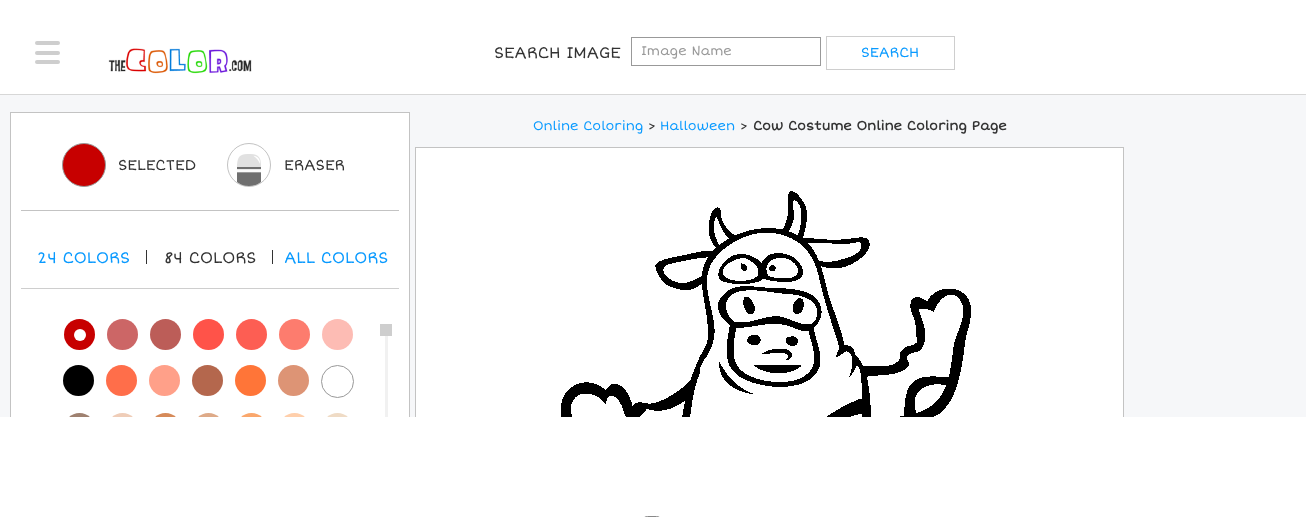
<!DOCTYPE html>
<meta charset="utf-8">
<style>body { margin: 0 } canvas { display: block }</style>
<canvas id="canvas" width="1306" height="517"></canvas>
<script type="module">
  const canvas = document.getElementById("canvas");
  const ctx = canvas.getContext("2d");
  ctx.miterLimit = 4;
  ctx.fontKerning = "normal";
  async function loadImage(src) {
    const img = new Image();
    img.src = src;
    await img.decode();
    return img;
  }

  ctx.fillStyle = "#f6f7f9";
  ctx.fillRect(0, 0, 1306, 517);
  ctx.fillStyle = "#ffffff";
  ctx.fillRect(0, 0, 1306, 94);
  ctx.fillStyle = "#d7d7d7";
  ctx.fillRect(0, 94, 1306, 1);
  ctx.fillStyle = "#cecece";
  ctx.beginPath();
  ctx.roundRect(35, 41, 25, 4, 2);
  ctx.fill();
  ctx.beginPath();
  ctx.roundRect(35, 51, 25, 4, 2);
  ctx.fill();
  ctx.beginPath();
  ctx.roundRect(35, 60, 25, 4, 2);
  ctx.fill();
  ctx.drawImage(await loadImage("img1.png"), 108, 48, 144, 26);
  ctx.font = "16px Short Stack";
  ctx.fillStyle = "#333333";
  ctx.fillText("SEARCH IMAGE", 494, 58);
  ctx.strokeStyle = "#999999";
  ctx.strokeRect(631.5, 37.5, 189, 28);
  ctx.font = "13px Short Stack";
  ctx.fillStyle = "#999999";
  ctx.fillText("Image Name", 641, 55);
  ctx.strokeStyle = "#cecece";
  ctx.strokeRect(826.5, 36.5, 128, 33);
  ctx.font = "14px Short Stack";
  ctx.fillStyle = "#099aff";
  ctx.fillText("SEARCH", 861, 57);
  ctx.font = "13px Short Stack";
  ctx.fillText("Online Coloring", 533, 130);
  ctx.fillStyle = "#333333";
  ctx.fillText(">", 648, 130);
  ctx.fillStyle = "#099aff";
  ctx.fillText("Halloween", 660, 130);
  ctx.fillStyle = "#333333";
  ctx.fillText(">", 740, 130);
  ctx.font = "bold 13px Short Stack";
  ctx.fillText("Cow Costume Online Coloring Page", 753, 130);
  ctx.fillStyle = "#ffffff";
  ctx.fillRect(416, 148, 707, 269);
  ctx.strokeStyle = "#c3c3c3";
  ctx.strokeRect(415.5, 147.5, 708, 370);
  ctx.drawImage(await loadImage("img2.png"), 561, 191, 410, 226);
  ctx.fillRect(11, 113, 398, 304);
  ctx.strokeRect(10.5, 112.5, 399, 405);
  ctx.fillStyle = "#c3c3c3";
  ctx.fillRect(21, 210, 378, 1);
  ctx.fillStyle = "#c70000";
  ctx.beginPath();
  ctx.arc(84, 165, 21.5, 0, Math.PI * 2);
  ctx.fill();
  ctx.strokeStyle = "#999999";
  ctx.stroke();
  ctx.font = "15px Short Stack";
  ctx.fillStyle = "#333333";
  ctx.fillText("SELECTED", 118, 170);
  ctx.beginPath();
  ctx.arc(249, 165, 21.5, 0, Math.PI * 2);
  ctx.strokeStyle = "#c3c3c3";
  ctx.stroke();
  ctx.drawImage(await loadImage("img3.png"), 237, 154, 24, 32);
  ctx.fillText("ERASER", 284, 170);
  ctx.fillStyle = "#cecece";
  ctx.fillRect(21, 288, 378, 1);
  ctx.font = "16px Short Stack";
  ctx.fillStyle = "#099aff";
  ctx.fillText("24 COLORS", 37, 263);
  ctx.fillStyle = "#333333";
  ctx.fillRect(146, 250, 1, 14);
  ctx.fillText("84 COLORS", 164, 263);
  ctx.fillRect(272, 250, 1, 14);
  ctx.fillStyle = "#099aff";
  ctx.fillText("ALL COLORS", 284, 263);
  ctx.fillStyle = "#c70000";
  ctx.beginPath();
  ctx.arc(79.5, 334.5, 15.5, 0, Math.PI * 2);
  ctx.fill();
  ctx.fillStyle = "#ffffff";
  ctx.beginPath();
  ctx.arc(80, 335, 6, 0, Math.PI * 2);
  ctx.fill();
  ctx.fillStyle = "#cc6666";
  ctx.beginPath();
  ctx.arc(122.5, 334.5, 15.5, 0, Math.PI * 2);
  ctx.fill();
  ctx.fillStyle = "#bc5d58";
  ctx.beginPath();
  ctx.arc(165.5, 334.5, 15.5, 0, Math.PI * 2);
  ctx.fill();
  ctx.fillStyle = "#ff5349";
  ctx.beginPath();
  ctx.arc(208.5, 334.5, 15.5, 0, Math.PI * 2);
  ctx.fill();
  ctx.fillStyle = "#fd5e53";
  ctx.beginPath();
  ctx.arc(251.5, 334.5, 15.5, 0, Math.PI * 2);
  ctx.fill();
  ctx.fillStyle = "#fd7c6e";
  ctx.beginPath();
  ctx.arc(294.5, 334.5, 15.5, 0, Math.PI * 2);
  ctx.fill();
  ctx.fillStyle = "#fdbcb4";
  ctx.beginPath();
  ctx.arc(337.5, 334.5, 15.5, 0, Math.PI * 2);
  ctx.fill();
  ctx.fillStyle = "#000000";
  ctx.beginPath();
  ctx.arc(78.5, 380.5, 15.5, 0, Math.PI * 2);
  ctx.fill();
  ctx.fillStyle = "#ff6e4a";
  ctx.beginPath();
  ctx.arc(121.5, 380.5, 15.5, 0, Math.PI * 2);
  ctx.fill();
  ctx.fillStyle = "#ffa089";
  ctx.beginPath();
  ctx.arc(164.5, 380.5, 15.5, 0, Math.PI * 2);
  ctx.fill();
  ctx.fillStyle = "#b4674d";
  ctx.beginPath();
  ctx.arc(207.5, 380.5, 15.5, 0, Math.PI * 2);
  ctx.fill();
  ctx.fillStyle = "#ff7538";
  ctx.beginPath();
  ctx.arc(250.5, 380.5, 15.5, 0, Math.PI * 2);
  ctx.fill();
  ctx.fillStyle = "#dd9475";
  ctx.beginPath();
  ctx.arc(293.5, 380.5, 15.5, 0, Math.PI * 2);
  ctx.fill();
  ctx.beginPath();
  ctx.arc(337.5, 381.5, 16, 0, Math.PI * 2);
  ctx.strokeStyle = "#999999";
  ctx.stroke();
  ctx.fillStyle = "#9f8170";
  ctx.beginPath();
  ctx.arc(79.5, 428.5, 15.5, 0, Math.PI * 2);
  ctx.fill();
  ctx.fillStyle = "#efcdb8";
  ctx.beginPath();
  ctx.arc(122.5, 428.5, 15.5, 0, Math.PI * 2);
  ctx.fill();
  ctx.fillStyle = "#d68a59";
  ctx.beginPath();
  ctx.arc(165.5, 428.5, 15.5, 0, Math.PI * 2);
  ctx.fill();
  ctx.fillStyle = "#deaa88";
  ctx.beginPath();
  ctx.arc(208.5, 428.5, 15.5, 0, Math.PI * 2);
  ctx.fill();
  ctx.fillStyle = "#faa76c";
  ctx.beginPath();
  ctx.arc(251.5, 428.5, 15.5, 0, Math.PI * 2);
  ctx.fill();
  ctx.fillStyle = "#ffcfab";
  ctx.beginPath();
  ctx.arc(294.5, 428.5, 15.5, 0, Math.PI * 2);
  ctx.fill();
  ctx.fillStyle = "#efdbc5";
  ctx.beginPath();
  ctx.arc(337.5, 428.5, 15.5, 0, Math.PI * 2);
  ctx.fill();
  ctx.fillStyle = "#f1f1f1";
  ctx.fillRect(385, 336, 3, 81);
  ctx.fillStyle = "#cecece";
  ctx.fillRect(380, 324, 12, 12);
  ctx.fillStyle = "#ffffff";
  ctx.fillRect(0, 417, 1306, 100);
  ctx.beginPath();
  ctx.roundRect(641.5, 516.5, 21, 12, 10.5);
  ctx.strokeStyle = "#f9f9f9";
  ctx.stroke();
  ctx.beginPath();
  ctx.roundRect(641.5, 516.5, 21, 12, 10.5);
  ctx.strokeStyle = "#888888";
  ctx.stroke();
</script>
